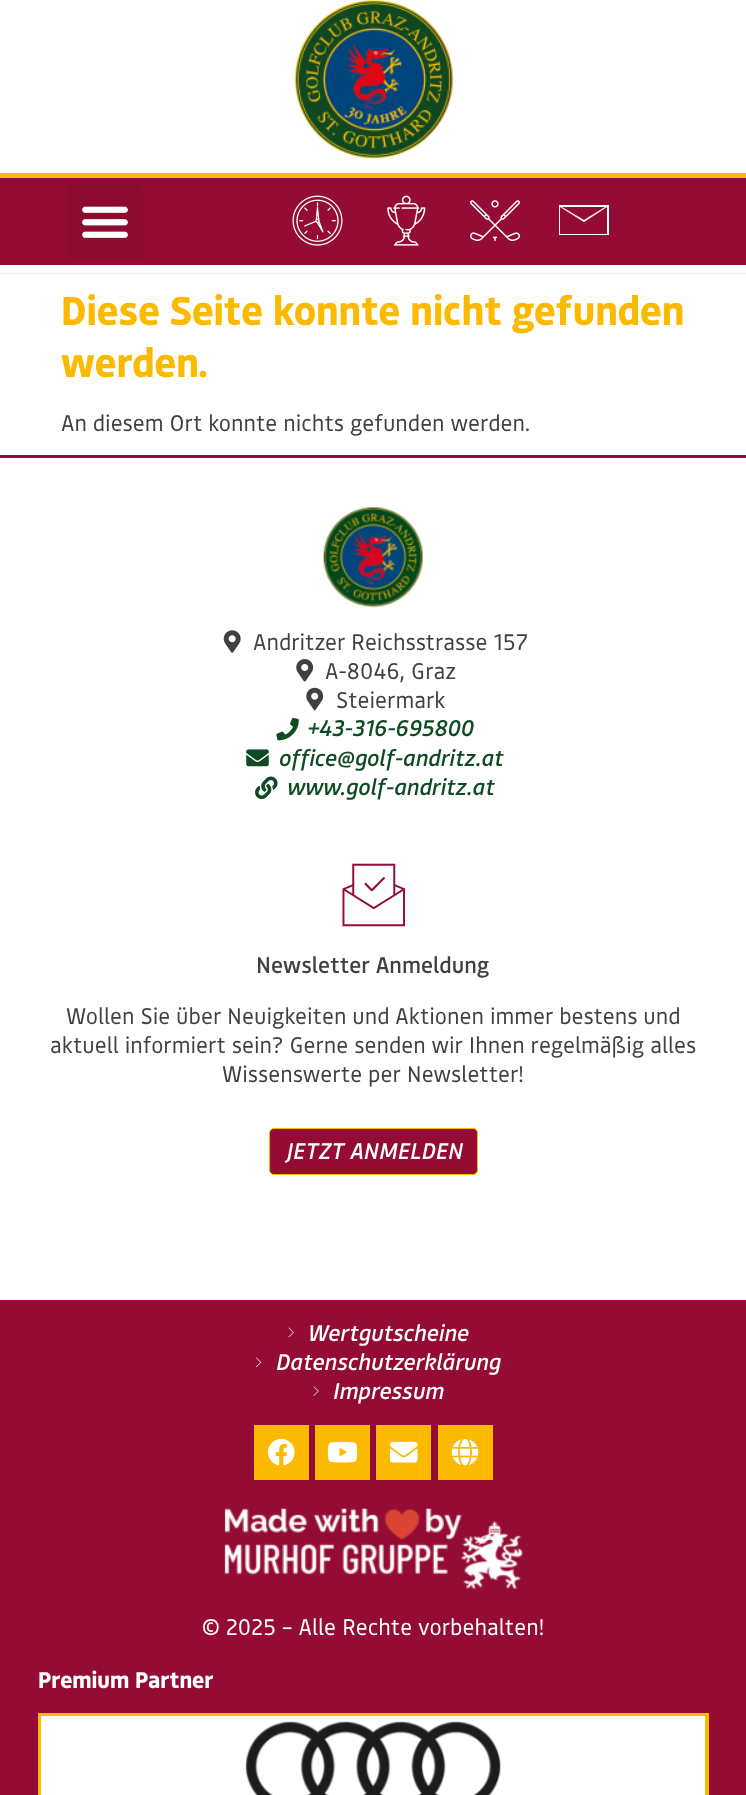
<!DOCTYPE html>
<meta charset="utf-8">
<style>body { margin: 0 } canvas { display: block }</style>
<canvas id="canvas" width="746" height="1795"></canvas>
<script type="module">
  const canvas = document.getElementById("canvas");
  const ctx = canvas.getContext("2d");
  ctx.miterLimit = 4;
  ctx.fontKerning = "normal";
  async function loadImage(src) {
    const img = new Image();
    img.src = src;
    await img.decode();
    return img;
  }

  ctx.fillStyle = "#ffffff";
  ctx.fillRect(0, 0, 746, 1795);
  ctx.fillStyle = "#fbb900";
  ctx.fillRect(0, 173, 746, 5);
  ctx.drawImage(await loadImage("img1.png"), 294, 0, 160, 159);
  ctx.fillStyle = "#940c33";
  ctx.fillRect(0, 178, 746, 87);
  ctx.fillStyle = "#8d0b30";
  ctx.beginPath();
  ctx.roundRect(68, 184, 75, 75, 4);
  ctx.fill();
  ctx.drawImage(await loadImage("img2.png"), 82, 206, 46, 32);
  ctx.drawImage(await loadImage("img3.png"), 292, 195, 51, 51);
  ctx.drawImage(await loadImage("img4.png"), 387, 195, 39, 51);
  ctx.drawImage(await loadImage("img5.png"), 470, 200, 50, 41);
  ctx.fillStyle = "#ffffff";
  ctx.beginPath();
  ctx.moveTo(609, 205);
  ctx.lineTo(559, 205);
  ctx.lineTo(559, 235);
  ctx.lineTo(609, 235);
  ctx.closePath();
  ctx.moveTo(605, 207);
  ctx.lineTo(584, 220);
  ctx.lineTo(562, 207);
  ctx.closePath();
  ctx.moveTo(560, 234);
  ctx.lineTo(560, 207);
  ctx.lineTo(584, 222);
  ctx.lineTo(607, 207);
  ctx.lineTo(607, 234);
  ctx.closePath();
  ctx.fill();
  ctx.fillStyle = "#f1f1f1";
  ctx.fillRect(0, 273, 746, 1);
  ctx.font = "bold 40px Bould";
  ctx.fillStyle = "#fbb900";
  ctx.fillText("Diese Seite konnte nicht gefunden", 61, 325);
  ctx.fillText("werden.", 61, 377);
  ctx.font = "22.5px Bould";
  ctx.fillStyle = "#404040";
  ctx.fillText("An diesem Ort konnte nichts gefunden werden.", 61, 431);
  ctx.fillStyle = "#940c33";
  ctx.fillRect(0, 455, 746, 3);
  ctx.drawImage(await loadImage("img6.png"), 323, 507, 100, 101);
  ctx.drawImage(await loadImage("img7.png"), 223, 630, 18, 23);
  ctx.fillStyle = "#404040";
  ctx.fillText("Andritzer Reichsstrasse 157", 253, 650);
  ctx.drawImage(await loadImage("img8.png"), 296, 659, 18, 23);
  ctx.fillText("A-8046, Graz", 325, 679);
  ctx.drawImage(await loadImage("img9.png"), 306, 687, 18, 24);
  ctx.fillText("Steiermark", 336, 708);
  ctx.drawImage(await loadImage("img10.png"), 276, 717, 23, 24);
  ctx.font = "italic 500 22.5px Bould";
  ctx.fillStyle = "#0e4a22";
  ctx.fillText("+43-316-695800", 307, 736);
  ctx.drawImage(await loadImage("img11.png"), 246, 749, 23, 18);
  ctx.fillText("office@golf-andritz.at", 278, 766);
  ctx.drawImage(await loadImage("img12.png"), 255, 776, 23, 24);
  ctx.fillText("www.golf-andritz.at", 286, 795);
  ctx.drawImage(await loadImage("img13.png"), 342, 863, 63, 64);
  ctx.font = "500 22.5px Bould";
  ctx.fillStyle = "#404040";
  ctx.fillText("Newsletter Anmeldung", 256, 973);
  ctx.font = "22.5px Bould";
  ctx.fillText("Wollen Sie über Neuigkeiten und Aktionen immer bestens und", 66, 1024);
  ctx.fillText("aktuell informiert sein? Gerne senden wir Ihnen regelmäßig alles", 50, 1053);
  ctx.fillText("Wissenswerte per Newsletter!", 222, 1082);
  ctx.fillStyle = "#940c33";
  ctx.beginPath();
  ctx.roundRect(269.5, 1128.5, 208, 46, 4.5);
  ctx.fill();
  ctx.strokeStyle = "#fbb900";
  ctx.stroke();
  ctx.font = "italic 500 22.5px Bould";
  ctx.fillStyle = "#ffffff";
  ctx.fillText("JETZT ANMELDEN", 285, 1159);
  ctx.fillStyle = "#940c33";
  ctx.fillRect(0, 1300, 746, 495);
  ctx.drawImage(await loadImage("img14.png"), 288, 1327, 6, 11);
  ctx.fillStyle = "#ffffff";
  ctx.fillText("Wertgutscheine", 307, 1341);
  ctx.drawImage(await loadImage("img15.png"), 256, 1357, 6, 11);
  ctx.fillText("Datenschutzerklärung", 275, 1370);
  ctx.drawImage(await loadImage("img16.png"), 313, 1386, 6, 10);
  ctx.fillText("Impressum", 332, 1399);
  ctx.fillStyle = "#fbb900";
  ctx.fillRect(254, 1425, 55, 55);
  ctx.drawImage(await loadImage("img17.png"), 267, 1438, 28, 28);
  ctx.fillRect(315, 1425, 55, 55);
  ctx.drawImage(await loadImage("img18.png"), 327, 1441, 31, 22);
  ctx.fillRect(376, 1425, 55, 55);
  ctx.drawImage(await loadImage("img19.png"), 390, 1441, 28, 22);
  ctx.fillRect(438, 1425, 55, 55);
  ctx.drawImage(await loadImage("img20.png"), 451, 1438, 28, 28);
  ctx.drawImage(await loadImage("img21.png"), 224, 1508, 299, 81);
  ctx.font = "22.5px Bould";
  ctx.fillStyle = "#ffffff";
  ctx.fillText("© 2025 – Alle Rechte vorbehalten!", 202, 1635);
  ctx.font = "bold 22.5px Bould";
  ctx.fillText("Premium Partner", 38, 1688);
  ctx.lineWidth = 4;
  ctx.strokeRect(40, 1715, 667, 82);
  ctx.fillRect(41, 1716, 664, 79);
  ctx.drawImage(await loadImage("img22.png"), 245, 1721, 256, 74);
</script>
